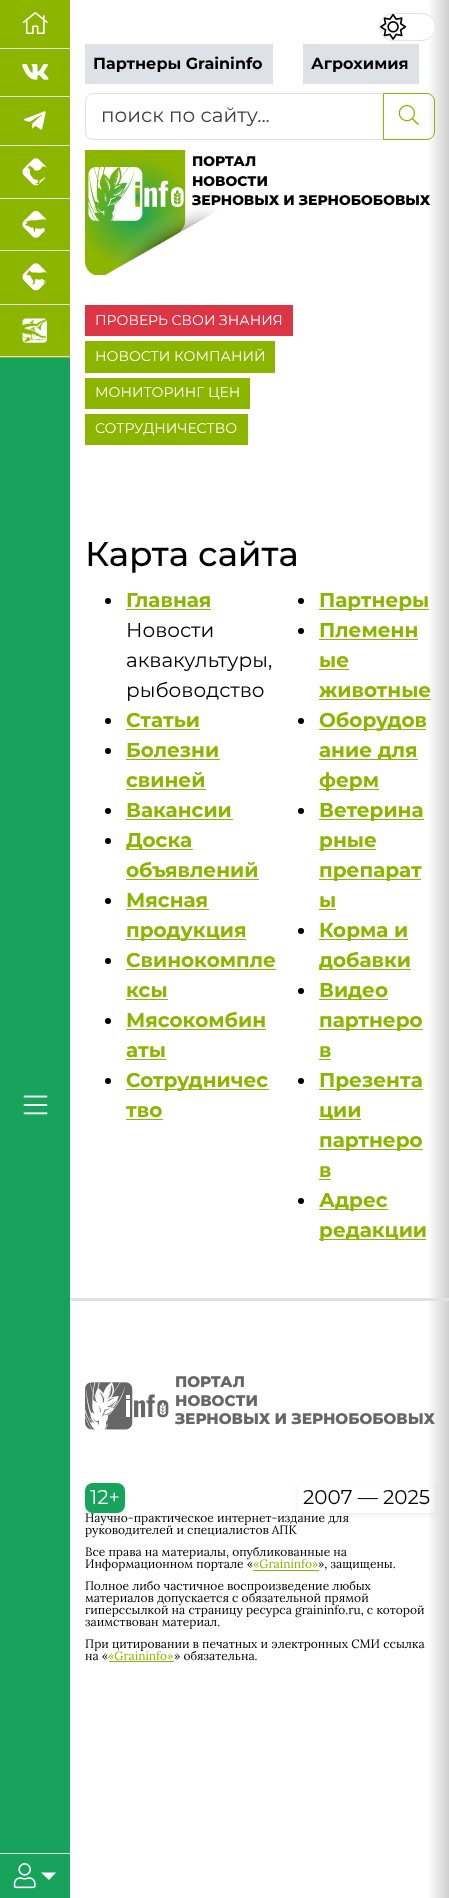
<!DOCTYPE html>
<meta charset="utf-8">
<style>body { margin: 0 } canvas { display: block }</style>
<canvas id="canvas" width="449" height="1898"></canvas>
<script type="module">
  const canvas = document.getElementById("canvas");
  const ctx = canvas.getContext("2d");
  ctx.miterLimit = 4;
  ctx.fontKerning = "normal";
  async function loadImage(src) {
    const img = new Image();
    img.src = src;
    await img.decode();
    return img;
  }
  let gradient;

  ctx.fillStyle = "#ffffff";
  ctx.fillRect(0, 0, 449, 1898);
  gradient = ctx.createLinearGradient(0, 949, 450, 949);
  gradient.addColorStop(0, "#cccccc");
  gradient.addColorStop(0.12, "#ffffff");
  gradient.addColorStop(0.95, "#ffffff");
  gradient.addColorStop(1, "#cccccc");
  ctx.fillStyle = gradient;
  ctx.fillRect(429, 0, 20, 1898);
  ctx.fillStyle = "#18a35c";
  ctx.fillRect(0, 358, 70, 1540);
  ctx.fillStyle = "#8cb500";
  ctx.fillRect(0, 0, 70, 48);
  ctx.fillStyle = "#dee2e6";
  ctx.fillRect(0, 48, 70, 1);
  ctx.drawImage(await loadImage("img1.png"), 22, 12, 26, 23);
  ctx.fillStyle = "#8cb500";
  ctx.fillRect(0, 49, 70, 96);
  ctx.fillStyle = "#dee2e6";
  ctx.fillRect(0, 96, 70, 1);
  ctx.drawImage(await loadImage("img2.png"), 22, 64, 27, 16);
  ctx.fillRect(0, 145, 70, 1);
  ctx.drawImage(await loadImage("img3.png"), 23, 111, 23, 19);
  ctx.fillStyle = "#8cb500";
  ctx.fillRect(0, 146, 70, 52);
  ctx.fillStyle = "#dee2e6";
  ctx.fillRect(0, 198, 70, 1);
  ctx.drawImage(await loadImage("img4.png"), 22, 158, 25, 28);
  ctx.fillStyle = "#8cb500";
  ctx.fillRect(0, 199, 70, 51);
  ctx.fillStyle = "#dee2e6";
  ctx.fillRect(0, 250, 70, 1);
  ctx.drawImage(await loadImage("img5.png"), 22, 210, 25, 28);
  ctx.fillStyle = "#8cb500";
  ctx.fillRect(0, 251, 70, 53);
  ctx.fillStyle = "#dee2e6";
  ctx.fillRect(0, 304, 70, 1);
  ctx.drawImage(await loadImage("img6.png"), 22, 263, 25, 28);
  ctx.fillStyle = "#8cb500";
  ctx.fillRect(0, 305, 70, 53);
  ctx.fillStyle = "#dee2e6";
  ctx.fillRect(0, 356, 70, 1);
  ctx.drawImage(await loadImage("img7.png"), 22, 318, 25, 25);
  ctx.drawImage(await loadImage("img8.png"), 23, 1095, 25, 20);
  ctx.fillRect(0, 1853, 70, 1);
  ctx.drawImage(await loadImage("img9.png"), 13, 1863, 23, 26);
  ctx.fillStyle = "#ffffff";
  ctx.beginPath();
  ctx.moveTo(41, 1872.5);
  ctx.lineTo(56, 1872.5);
  ctx.lineTo(49, 1880);
  ctx.closePath();
  ctx.fill();
  ctx.beginPath();
  ctx.roundRect(379, 13, 57, 28, 14);
  ctx.fill();
  ctx.drawImage(await loadImage("img10.png"), 380, 14, 26, 26);
  ctx.beginPath();
  ctx.roundRect(379.5, 13.5, 56, 27, 13.5);
  ctx.strokeStyle = "#dee2e6";
  ctx.stroke();
  ctx.fillStyle = "#dee2e6";
  ctx.fillRect(85, 44, 188, 40);
  ctx.font = "bold 16px Montserrat";
  ctx.fillStyle = "#000000";
  ctx.fillText("Партнеры Graininfo", 93, 69);
  ctx.fillStyle = "#dee2e6";
  ctx.fillRect(303, 44, 116, 40);
  ctx.fillStyle = "#000000";
  ctx.fillText("Агрохимия", 311, 69);
  ctx.beginPath();
  ctx.roundRect(85.5, 93.5, 298, 46, [7.5, 0, 0, 7.5]);
  ctx.stroke();
  ctx.font = "20px Montserrat";
  ctx.fillStyle = "#404040";
  ctx.fillText("поиск по сайту...", 101, 122);
  ctx.beginPath();
  ctx.roundRect(383.5, 93.5, 51, 46, [0, 7.5, 7.5, 0]);
  ctx.strokeStyle = "#8cb500";
  ctx.stroke();
  ctx.drawImage(await loadImage("img11.png"), 398, 105, 21, 20);
  ctx.drawImage(await loadImage("img12.png"), 85, 150, 346, 125);
  ctx.fillStyle = "#dc3545";
  ctx.fillRect(85, 305, 208, 31);
  ctx.font = "14px Montserrat";
  ctx.fillStyle = "#ffffff";
  ctx.fillText("ПРОВЕРЬ СВОИ ЗНАНИЯ", 95, 325);
  ctx.fillStyle = "#8cb500";
  ctx.fillRect(85, 341, 190, 32);
  ctx.fillStyle = "#ffffff";
  ctx.fillText("НОВОСТИ КОМПАНИЙ", 95, 361);
  ctx.fillStyle = "#8cb500";
  ctx.fillRect(85, 378, 165, 31);
  ctx.fillStyle = "#ffffff";
  ctx.fillText("МОНИТОРИНГ ЦЕН", 95, 397);
  ctx.fillStyle = "#8cb500";
  ctx.fillRect(85, 414, 163, 31);
  ctx.fillStyle = "#ffffff";
  ctx.fillText("СОТРУДНИЧЕСТВО", 95, 433);
  ctx.font = "500 34.25px Montserrat";
  ctx.fillStyle = "#000000";
  ctx.fillText("Карта сайта", 85, 566);
  ctx.beginPath();
  ctx.arc(108, 601, 3, 0, Math.PI * 2);
  ctx.fill();
  ctx.font = "bold 20px Montserrat";
  ctx.fillStyle = "#8cb500";
  ctx.fillText("Главная", 126, 607);
  ctx.fillRect(126, 609, 85, 1);
  ctx.font = "20px Montserrat";
  ctx.fillStyle = "#000000";
  ctx.fillText("Новости", 126, 637);
  ctx.fillText("аквакультуры,", 126, 667);
  ctx.fillText("рыбоводство", 126, 697);
  ctx.beginPath();
  ctx.arc(108, 721, 3, 0, Math.PI * 2);
  ctx.fill();
  ctx.font = "bold 20px Montserrat";
  ctx.fillStyle = "#8cb500";
  ctx.fillText("Статьи", 126, 727);
  ctx.fillRect(126, 729, 74, 1);
  ctx.fillStyle = "#000000";
  ctx.beginPath();
  ctx.arc(108, 751, 3, 0, Math.PI * 2);
  ctx.fill();
  ctx.fillStyle = "#8cb500";
  ctx.fillText("Болезни", 126, 757);
  ctx.fillRect(126, 759, 94, 1);
  ctx.fillText("свиней", 126, 787);
  ctx.fillRect(126, 789, 80, 1);
  ctx.fillStyle = "#000000";
  ctx.beginPath();
  ctx.arc(108, 811, 3, 0, Math.PI * 2);
  ctx.fill();
  ctx.fillStyle = "#8cb500";
  ctx.fillText("Вакансии", 126, 817);
  ctx.fillRect(126, 819, 107, 1);
  ctx.fillStyle = "#000000";
  ctx.beginPath();
  ctx.arc(108, 841, 3, 0, Math.PI * 2);
  ctx.fill();
  ctx.fillStyle = "#8cb500";
  ctx.fillRect(126, 849, 67, 1);
  ctx.fillText("Доска", 126, 847);
  ctx.fillText("объявлений", 126, 877);
  ctx.fillRect(126, 879, 133, 1);
  ctx.fillStyle = "#000000";
  ctx.beginPath();
  ctx.arc(108, 901, 3, 0, Math.PI * 2);
  ctx.fill();
  ctx.fillStyle = "#8cb500";
  ctx.fillText("Мясная", 126, 907);
  ctx.fillRect(126, 909, 83, 1);
  ctx.fillRect(126, 939, 120, 1);
  ctx.fillText("продукция", 126, 937);
  ctx.fillStyle = "#000000";
  ctx.beginPath();
  ctx.arc(108, 961, 3, 0, Math.PI * 2);
  ctx.fill();
  ctx.fillStyle = "#8cb500";
  ctx.fillText("Свинокомпле", 126, 967);
  ctx.fillRect(126, 969, 150, 1);
  ctx.fillText("ксы", 126, 997);
  ctx.fillRect(126, 999, 42, 1);
  ctx.fillStyle = "#000000";
  ctx.beginPath();
  ctx.arc(108, 1021, 3, 0, Math.PI * 2);
  ctx.fill();
  ctx.fillStyle = "#8cb500";
  ctx.fillText("Мясокомбин", 126, 1027);
  ctx.fillRect(126, 1029, 140, 1);
  ctx.fillText("аты", 126, 1057);
  ctx.fillRect(126, 1059, 40, 1);
  ctx.fillStyle = "#000000";
  ctx.beginPath();
  ctx.arc(108, 1081, 3, 0, Math.PI * 2);
  ctx.fill();
  ctx.fillStyle = "#8cb500";
  ctx.fillRect(126, 1089, 143, 1);
  ctx.fillText("Сотрудничес", 126, 1087);
  ctx.fillText("тво", 126, 1117);
  ctx.fillRect(126, 1119, 37, 1);
  ctx.fillStyle = "#000000";
  ctx.beginPath();
  ctx.arc(301, 601, 3, 0, Math.PI * 2);
  ctx.fill();
  ctx.fillStyle = "#8cb500";
  ctx.fillRect(319, 609, 110, 1);
  ctx.fillText("Партнеры", 319, 607);
  ctx.fillStyle = "#000000";
  ctx.beginPath();
  ctx.arc(301, 631, 3, 0, Math.PI * 2);
  ctx.fill();
  ctx.fillStyle = "#8cb500";
  ctx.fillText("Племенн", 319, 637);
  ctx.fillRect(319, 639, 99, 1);
  ctx.fillText("ые", 319, 667);
  ctx.fillRect(319, 669, 30, 1);
  ctx.fillText("животные", 319, 697);
  ctx.fillRect(319, 699, 112, 1);
  ctx.fillStyle = "#000000";
  ctx.beginPath();
  ctx.arc(301, 721, 3, 0, Math.PI * 2);
  ctx.fill();
  ctx.fillStyle = "#8cb500";
  ctx.fillRect(319, 729, 107, 1);
  ctx.fillText("Оборудов", 319, 727);
  ctx.fillRect(319, 759, 99, 1);
  ctx.fillText("ание для", 319, 757);
  ctx.fillRect(319, 789, 60, 1);
  ctx.fillText("ферм", 319, 787);
  ctx.fillStyle = "#000000";
  ctx.beginPath();
  ctx.arc(301, 811, 3, 0, Math.PI * 2);
  ctx.fill();
  ctx.fillStyle = "#8cb500";
  ctx.fillRect(319, 819, 105, 1);
  ctx.fillText("Ветерина", 319, 817);
  ctx.fillRect(319, 849, 57, 1);
  ctx.fillText("рные", 319, 847);
  ctx.fillRect(319, 879, 102, 1);
  ctx.fillText("препарат", 319, 877);
  ctx.fillText("ы", 319, 907);
  ctx.fillRect(319, 909, 17, 1);
  ctx.fillStyle = "#000000";
  ctx.beginPath();
  ctx.arc(301, 931, 3, 0, Math.PI * 2);
  ctx.fill();
  ctx.fillStyle = "#8cb500";
  ctx.fillRect(319, 939, 89, 1);
  ctx.fillText("Корма и", 319, 937);
  ctx.fillRect(319, 969, 92, 1);
  ctx.fillText("добавки", 319, 967);
  ctx.fillStyle = "#000000";
  ctx.beginPath();
  ctx.arc(301, 991, 3, 0, Math.PI * 2);
  ctx.fill();
  ctx.fillStyle = "#8cb500";
  ctx.fillRect(319, 999, 69, 1);
  ctx.fillText("Видео", 319, 997);
  ctx.fillRect(319, 1029, 104, 1);
  ctx.fillText("партнеро", 319, 1027);
  ctx.fillText("в", 319, 1057);
  ctx.fillRect(319, 1059, 12, 1);
  ctx.fillStyle = "#000000";
  ctx.beginPath();
  ctx.arc(301, 1081, 3, 0, Math.PI * 2);
  ctx.fill();
  ctx.fillStyle = "#8cb500";
  ctx.fillRect(319, 1089, 104, 1);
  ctx.fillText("Презента", 319, 1087);
  ctx.fillRect(319, 1119, 42, 1);
  ctx.fillText("ции", 319, 1117);
  ctx.fillRect(319, 1149, 104, 1);
  ctx.fillText("партнеро", 319, 1147);
  ctx.fillText("в", 319, 1177);
  ctx.fillRect(319, 1179, 12, 1);
  ctx.fillStyle = "#000000";
  ctx.beginPath();
  ctx.arc(301, 1201, 3, 0, Math.PI * 2);
  ctx.fill();
  ctx.fillStyle = "#8cb500";
  ctx.fillRect(319, 1209, 69, 1);
  ctx.fillText("Адрес", 319, 1207);
  ctx.fillRect(319, 1239, 107, 1);
  ctx.fillText("редакции", 319, 1237);
  ctx.fillStyle = "#dee2e6";
  ctx.fillRect(70, 1298, 379, 3);
  ctx.drawImage(await loadImage("img13.png"), 85, 1382, 84, 48);
  ctx.font = "800 15.25px Montserrat";
  ctx.fillStyle = "#666666";
  ctx.fillText("ПОРТАЛ", 175, 1387);
  ctx.fillText("НОВОСТИ", 175, 1406);
  ctx.fillText("ЗЕРНОВЫХ И ЗЕРНОБОБОВЫХ", 175, 1424);
  ctx.fillStyle = "rgba(0, 0, 0, 0.07)";
  ctx.filter = "blur(2.5px)";
  ctx.beginPath();
  ctx.roundRect(85, 1485, 40, 30, 8);
  ctx.fill();
  ctx.filter = "none";
  ctx.fillStyle = "#18a35c";
  ctx.beginPath();
  ctx.roundRect(85, 1483, 40, 30, 8);
  ctx.fill();
  ctx.font = "20px Montserrat";
  ctx.fillStyle = "#ffffff";
  ctx.fillText("12+", 90, 1504);
  ctx.save();
  ctx.beginPath();
  ctx.moveTo(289, 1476);
  ctx.lineTo(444, 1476);
  ctx.lineTo(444, 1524);
  ctx.lineTo(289, 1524);
  ctx.closePath();
  ctx.moveTo(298, 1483);
  ctx.lineTo(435, 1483);
  ctx.lineTo(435, 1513);
  ctx.lineTo(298, 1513);
  ctx.closePath();
  ctx.clip("evenodd");
  ctx.fillStyle = "rgba(0, 0, 0, 0.07)";
  ctx.filter = "blur(2.5px)";
  ctx.beginPath();
  ctx.rect(298, 1485, 137, 30);
  ctx.fill();
  ctx.filter = "none";
  ctx.restore();
  ctx.fillStyle = "#000000";
  ctx.fillText("2007 — 2025", 303, 1504);
  ctx.font = "12px Lora";
  ctx.fillText("Научно-практическое интернет-издание для", 85, 1522);
  ctx.fillText("руководителей и специалистов АПК", 85, 1534);
  ctx.fillText("Все права на материалы, опубликованные на", 85, 1556);
  ctx.fillText("Информационном портале «", 85, 1568);
  ctx.fillStyle = "#8cb500";
  ctx.fillText("«Graininfo»", 253, 1568);
  ctx.fillRect(253, 1570, 66, 1);
  ctx.fillStyle = "#000000";
  ctx.fillText("», защищены.", 318, 1568);
  ctx.fillText("Полное либо частичное воспроизведение любых", 85, 1590);
  ctx.fillText("материалов допускается с обязательной прямой", 85, 1602);
  ctx.fillText("гиперссылкой на страницу ресурса graininfo.ru, с которой", 85, 1614);
  ctx.fillText("заимствован материал.", 85, 1626);
  ctx.fillText("При цитировании в печатных и электронных СМИ ссылка", 85, 1648);
  ctx.fillText("на «", 85, 1660);
  ctx.fillStyle = "#8cb500";
  ctx.fillText("«Graininfo»", 108, 1660);
  ctx.fillRect(109, 1661, 65, 1);
  ctx.fillStyle = "#000000";
  ctx.fillText("» обязательна.", 174, 1660);
</script>
